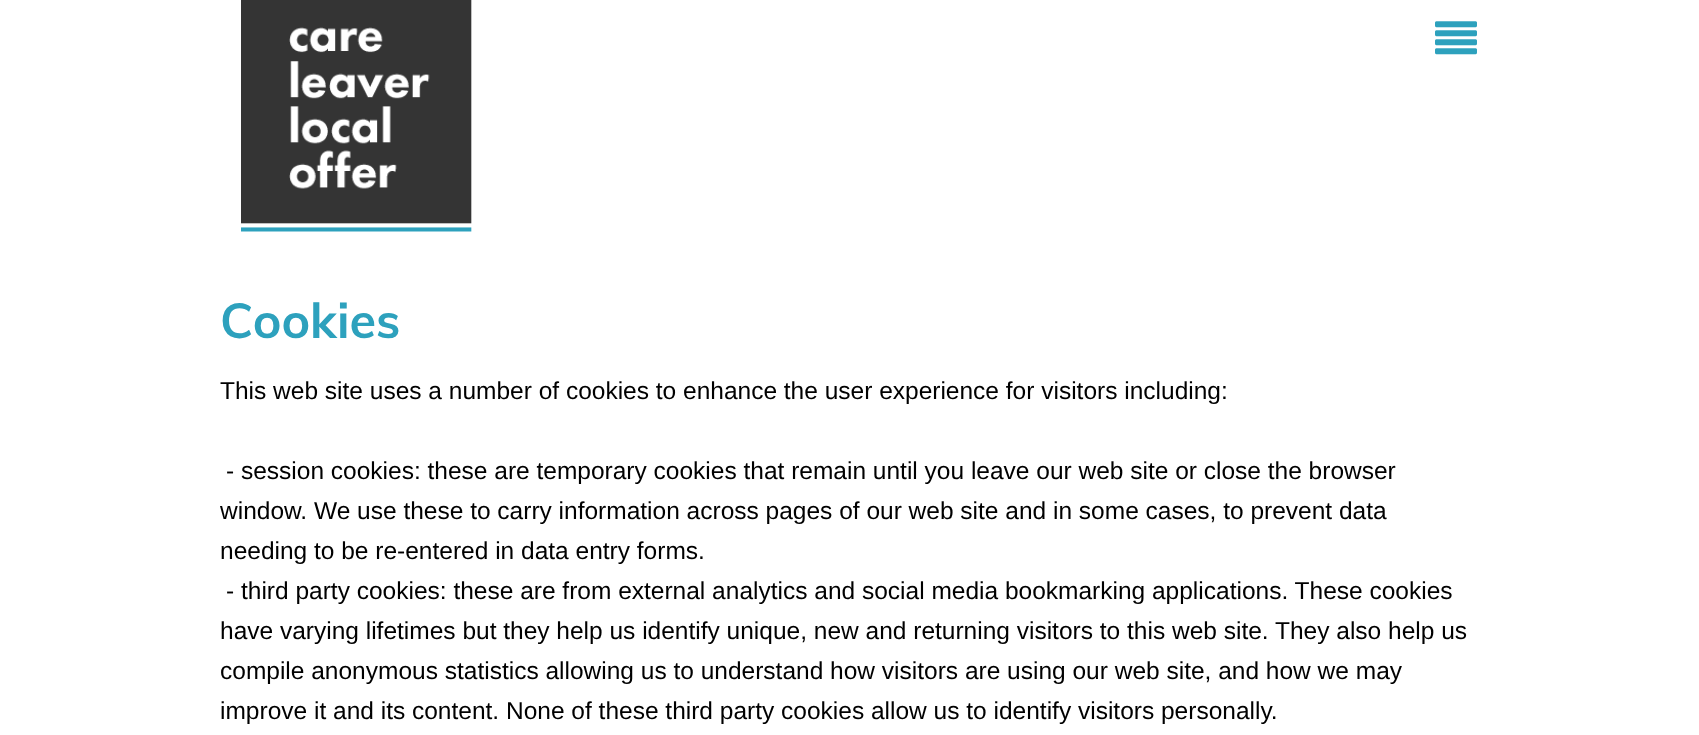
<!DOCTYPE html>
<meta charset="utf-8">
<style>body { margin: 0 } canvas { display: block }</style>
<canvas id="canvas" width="1699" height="735"></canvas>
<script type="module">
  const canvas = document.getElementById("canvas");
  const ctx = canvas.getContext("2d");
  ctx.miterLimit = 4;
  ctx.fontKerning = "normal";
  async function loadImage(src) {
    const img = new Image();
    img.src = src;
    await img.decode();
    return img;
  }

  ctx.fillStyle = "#ffffff";
  ctx.fillRect(0, 0, 1699, 735);
  ctx.drawImage(await loadImage("img1.png"), 241, 0, 231, 232);
  ctx.drawImage(await loadImage("img2.png"), 1435, 21, 42, 34);
  ctx.font = "bold 48.5px Muli";
  ctx.fillStyle = "#2da1bd";
  ctx.fillText("Cookies", 220, 338);
  ctx.font = "24.5px Liberation Sans";
  ctx.fillStyle = "#000000";
  ctx.fillText("This web site uses a number of cookies to enhance the user experience for visitors including:", 220, 399);
  ctx.fillText("- session cookies: these are temporary cookies that remain until you leave our web site or close the browser", 226, 479);
  ctx.fillText("window. We use these to carry information across pages of our web site and in some cases, to prevent data", 220, 519);
  ctx.fillText("needing to be re-entered in data entry forms.", 220, 559);
  ctx.fillText("- third party cookies: these are from external analytics and social media bookmarking applications. These cookies", 226, 599);
  ctx.fillText("have varying lifetimes but they help us identify unique, new and returning visitors to this web site. They also help us", 220, 639);
  ctx.fillText("compile anonymous statistics allowing us to understand how visitors are using our web site, and how we may", 220, 679);
  ctx.fillText("improve it and its content. None of these third party cookies allow us to identify visitors personally.", 220, 719);
</script>
